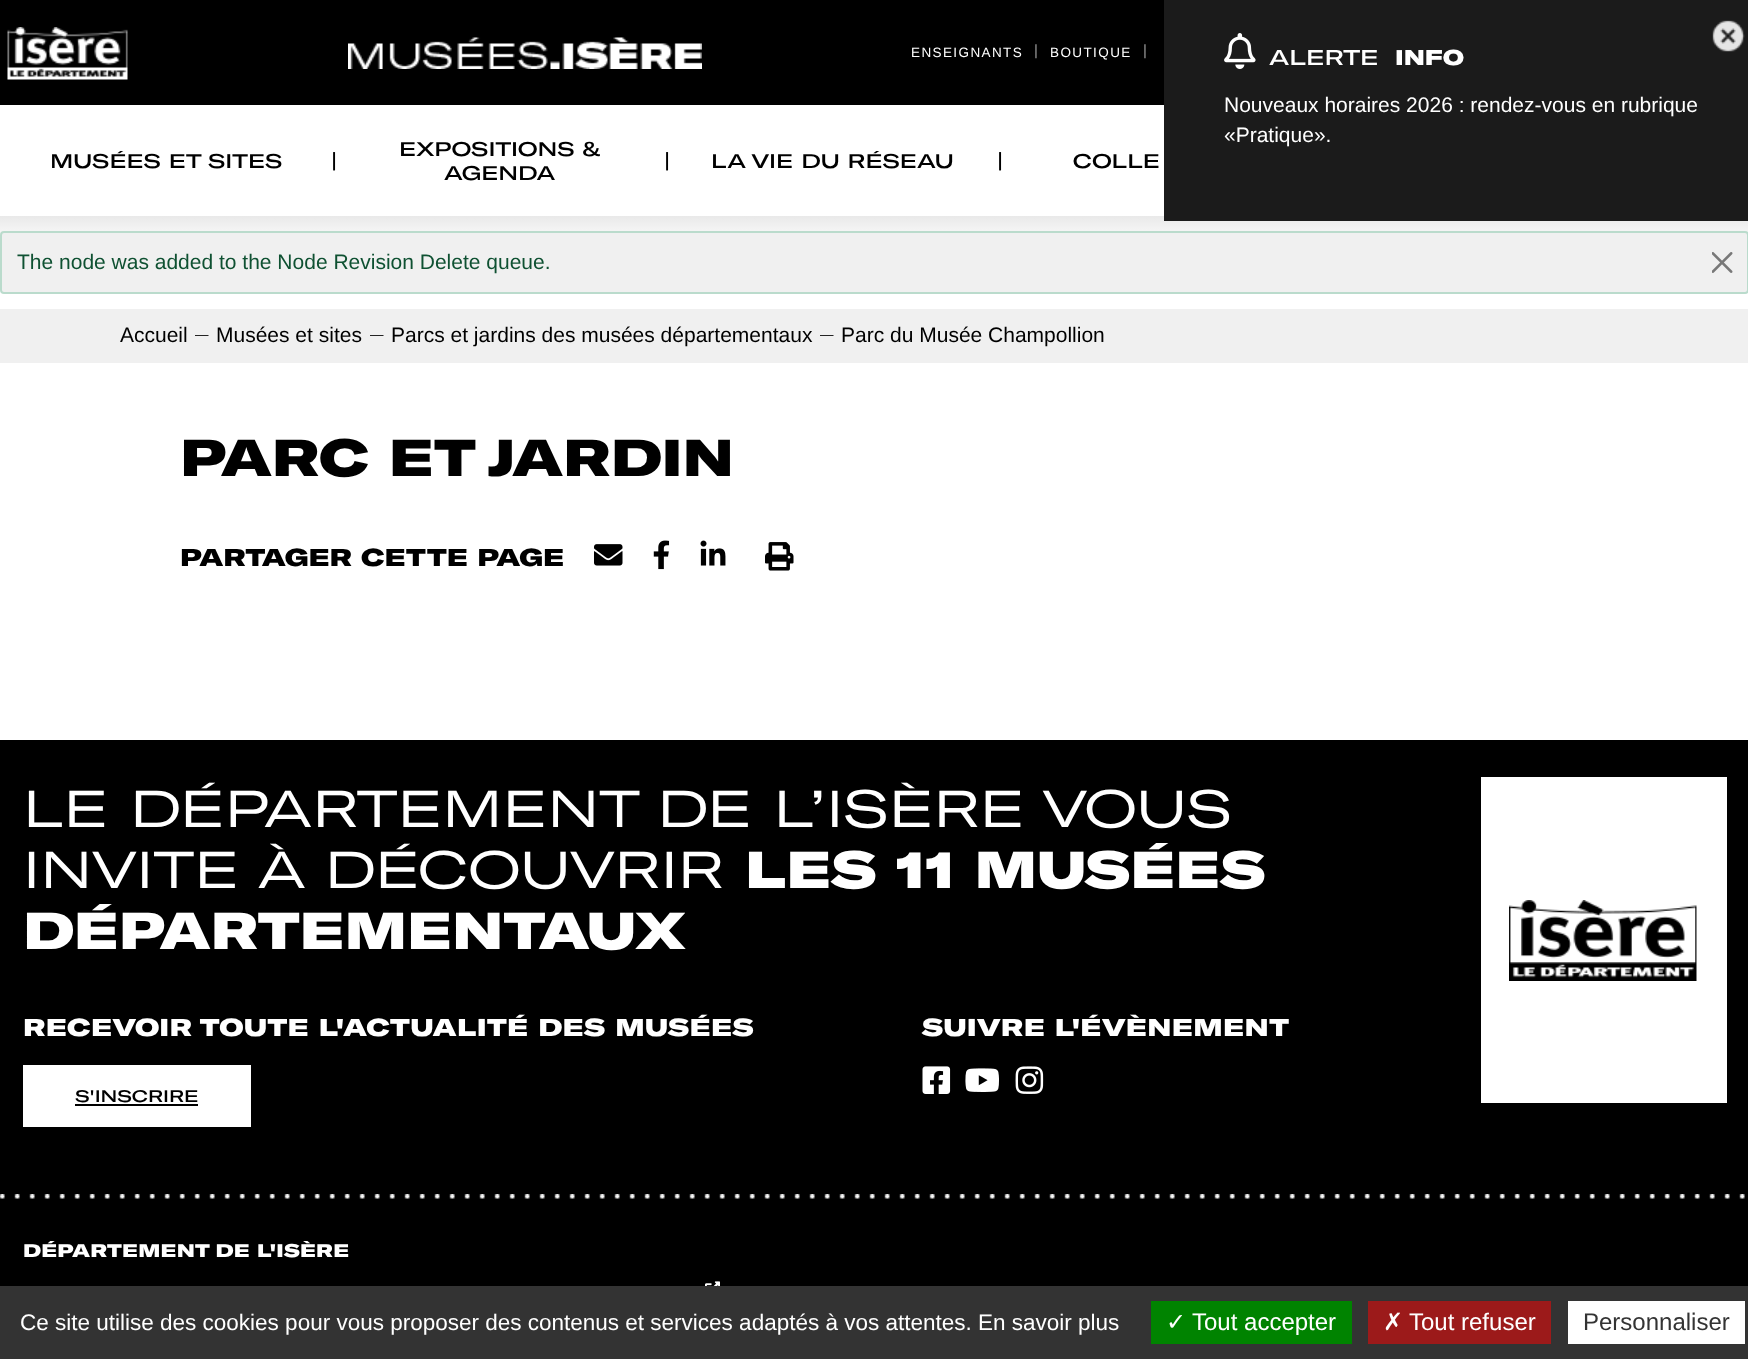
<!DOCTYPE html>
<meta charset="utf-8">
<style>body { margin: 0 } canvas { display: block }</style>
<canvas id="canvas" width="1748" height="1359"></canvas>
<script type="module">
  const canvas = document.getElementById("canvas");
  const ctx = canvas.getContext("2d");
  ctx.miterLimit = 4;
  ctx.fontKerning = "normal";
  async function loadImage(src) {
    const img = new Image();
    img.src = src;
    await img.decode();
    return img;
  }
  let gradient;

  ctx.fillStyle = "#ffffff";
  ctx.fillRect(0, 0, 1748, 1359);
  ctx.fillStyle = "#000000";
  ctx.fillRect(0, 0, 1164, 105);
  ctx.drawImage(await loadImage("img1.png"), 7, 27, 121, 53);
  ctx.drawImage(await loadImage("img2.png"), 348, 37, 354, 32);
  ctx.letterSpacing = "1.4px";
  ctx.font = "13.5px Liberation Sans";
  ctx.fillStyle = "#ffffff";
  ctx.fillText("ENSEIGNANTS", 911, 57);
  ctx.letterSpacing = "0px";
  ctx.font = "15px Liberation Sans";
  ctx.fillStyle = "#989898";
  ctx.fillText("|", 1034, 55);
  ctx.letterSpacing = "1.4px";
  ctx.font = "13.5px Liberation Sans";
  ctx.fillStyle = "#ffffff";
  ctx.fillText("BOUTIQUE", 1050, 57);
  ctx.letterSpacing = "0px";
  ctx.font = "15px Liberation Sans";
  ctx.fillStyle = "#989898";
  ctx.fillText("|", 1143, 55);
  gradient = ctx.createLinearGradient(875, 252, 875, 216);
  gradient.addColorStop(0.2, "#ffffff");
  gradient.addColorStop(1, "#e9e9e9");
  ctx.fillStyle = gradient;
  ctx.fillRect(0, 216, 1748, 19);
  ctx.fillStyle = "#1b1b1b";
  ctx.fillRect(1164, 0, 584, 221);
  ctx.drawImage(await loadImage("img3.png"), 1712, 20, 33, 32);
  ctx.drawImage(await loadImage("img4.png"), 1224, 33, 32, 36);
  ctx.font = "500 21px GT America";
  ctx.fillStyle = "#ffffff";
  ctx.fillText("ALERTE", 1269, 65);
  ctx.font = "900 21px GT America";
  ctx.fillText("INFO", 1395, 65);
  ctx.font = "21px Liberation Sans";
  ctx.fillText("Nouveaux horaires 2026 : rendez-vous en rubrique", 1224, 112);
  ctx.fillText("«Pratique».", 1224, 142);
  ctx.font = "500 19.5px GT America";
  ctx.fillStyle = "#000000";
  ctx.fillText("MUSÉES ET SITES", 50, 168);
  ctx.fillText("EXPOSITIONS &", 399, 156);
  ctx.font = "500 21px GT America";
  ctx.fillText("|", 331, 168);
  ctx.font = "500 19.5px GT America";
  ctx.fillText("AGENDA", 444, 180);
  ctx.font = "500 21px GT America";
  ctx.fillText("|", 664, 168);
  ctx.font = "500 19.5px GT America";
  ctx.fillText("LA VIE DU RÉSEAU", 711, 168);
  ctx.font = "500 21px GT America";
  ctx.fillText("|", 997, 168);
  ctx.font = "500 19.5px GT America";
  ctx.fillText("COLLE", 1073, 168);
  ctx.fillStyle = "#f0f0f0";
  ctx.beginPath();
  ctx.roundRect(1, 232, 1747, 61, 3);
  ctx.fill();
  ctx.strokeStyle = "#badbcc";
  ctx.lineWidth = 2;
  ctx.stroke();
  ctx.font = "21px Liberation Sans";
  ctx.fillStyle = "#0f5132";
  ctx.fillText("The node was added to the Node Revision Delete queue.", 17, 269);
  ctx.drawImage(await loadImage("img5.png"), 1712, 252, 21, 21);
  ctx.fillStyle = "#f0f0f0";
  ctx.fillRect(0, 309, 1748, 54);
  ctx.fillStyle = "#000000";
  ctx.fillText("Accueil", 120, 342);
  ctx.font = "13.5px Liberation Sans";
  ctx.fillText("—", 195, 339);
  ctx.font = "21px Liberation Sans";
  ctx.fillText("Musées et sites", 216, 342);
  ctx.font = "13.5px Liberation Sans";
  ctx.fillText("—", 370, 339);
  ctx.font = "21px Liberation Sans";
  ctx.fillText("Parcs et jardins des musées départementaux", 391, 342);
  ctx.font = "13.5px Liberation Sans";
  ctx.fillText("—", 820, 339);
  ctx.font = "21px Liberation Sans";
  ctx.fillText("Parc du Musée Champollion", 841, 342);
  ctx.font = "900 51px GT America";
  ctx.fillText("PARC ET JARDIN", 180, 476);
  ctx.font = "900 24px GT America";
  ctx.fillText("PARTAGER CETTE PAGE", 180, 566);
  ctx.drawImage(await loadImage("img6.png"), 594, 544, 29, 22);
  ctx.drawImage(await loadImage("img7.png"), 653, 540, 17, 30);
  ctx.drawImage(await loadImage("img8.png"), 700, 540, 26, 26);
  ctx.drawImage(await loadImage("img9.png"), 765, 542, 29, 29);
  ctx.fillRect(0, 740, 1748, 546);
  ctx.font = "51px GT America";
  ctx.fillStyle = "#ffffff";
  ctx.fillText("LE DÉPARTEMENT DE L’ISÈRE VOUS", 23, 827);
  ctx.fillText("INVITE À DÉCOUVRIR", 23, 888);
  ctx.font = "900 51px GT America";
  ctx.fillText("LES 11 MUSÉES", 745, 888);
  ctx.fillText("DÉPARTEMENTAUX", 23, 949);
  ctx.letterSpacing = "0.35px";
  ctx.font = "900 24px GT America";
  ctx.fillText("RECEVOIR TOUTE L'ACTUALITÉ DES MUSÉES", 23, 1036);
  ctx.fillRect(23, 1065, 228, 62);
  ctx.letterSpacing = "0px";
  ctx.font = "500 16.5px GT America";
  ctx.fillStyle = "#000000";
  ctx.fillText("S'INSCRIRE", 75, 1102);
  ctx.fillRect(75, 1104, 123, 2);
  ctx.letterSpacing = "0.35px";
  ctx.font = "900 24px GT America";
  ctx.fillStyle = "#ffffff";
  ctx.fillText("SUIVRE L'ÉVÈNEMENT", 922, 1036);
  ctx.drawImage(await loadImage("img10.png"), 922, 1066, 29, 28);
  ctx.drawImage(await loadImage("img11.png"), 965, 1068, 34, 24);
  ctx.drawImage(await loadImage("img12.png"), 1015, 1066, 29, 28);
  ctx.fillRect(1481, 777, 246, 326);
  ctx.drawImage(await loadImage("img13.png"), 1509, 900, 188, 81);
  ctx.drawImage(await loadImage("img14.png"), 0, 1194, 1745, 5);
  ctx.letterSpacing = "0.25px";
  ctx.font = "900 18px GT America";
  ctx.fillText("DÉPARTEMENT DE L'ISÈRE", 23, 1257);
  ctx.drawImage(await loadImage("img15.png"), 705, 1281, 15, 5);
  ctx.fillStyle = "#333333";
  ctx.fillRect(0, 1286, 1748, 73);
  ctx.letterSpacing = "0px";
  ctx.font = "22.5px Liberation Sans";
  ctx.fillStyle = "#ffffff";
  ctx.fillText("Ce site utilise des cookies pour vous proposer des contenus et services adaptés à vos attentes. En savoir plus", 20, 1330);
  ctx.fillStyle = "#008300";
  ctx.fillRect(1151, 1301, 201, 43);
  ctx.font = "24px DejaVu Sans";
  ctx.fillStyle = "#ffffff";
  ctx.fillText("✓", 1166, 1330);
  ctx.font = "24px Liberation Sans";
  ctx.fillText("Tout accepter", 1192, 1330);
  ctx.fillStyle = "#9c1a1a";
  ctx.fillRect(1368, 1301, 183, 43);
  ctx.font = "24px DejaVu Sans";
  ctx.fillStyle = "#ffffff";
  ctx.fillText("✗", 1383, 1330);
  ctx.font = "24px Liberation Sans";
  ctx.fillText("Tout refuser", 1409, 1330);
  ctx.fillRect(1568, 1301, 177, 43);
  ctx.fillStyle = "#333333";
  ctx.fillText("Personnaliser", 1583, 1330);
</script>
